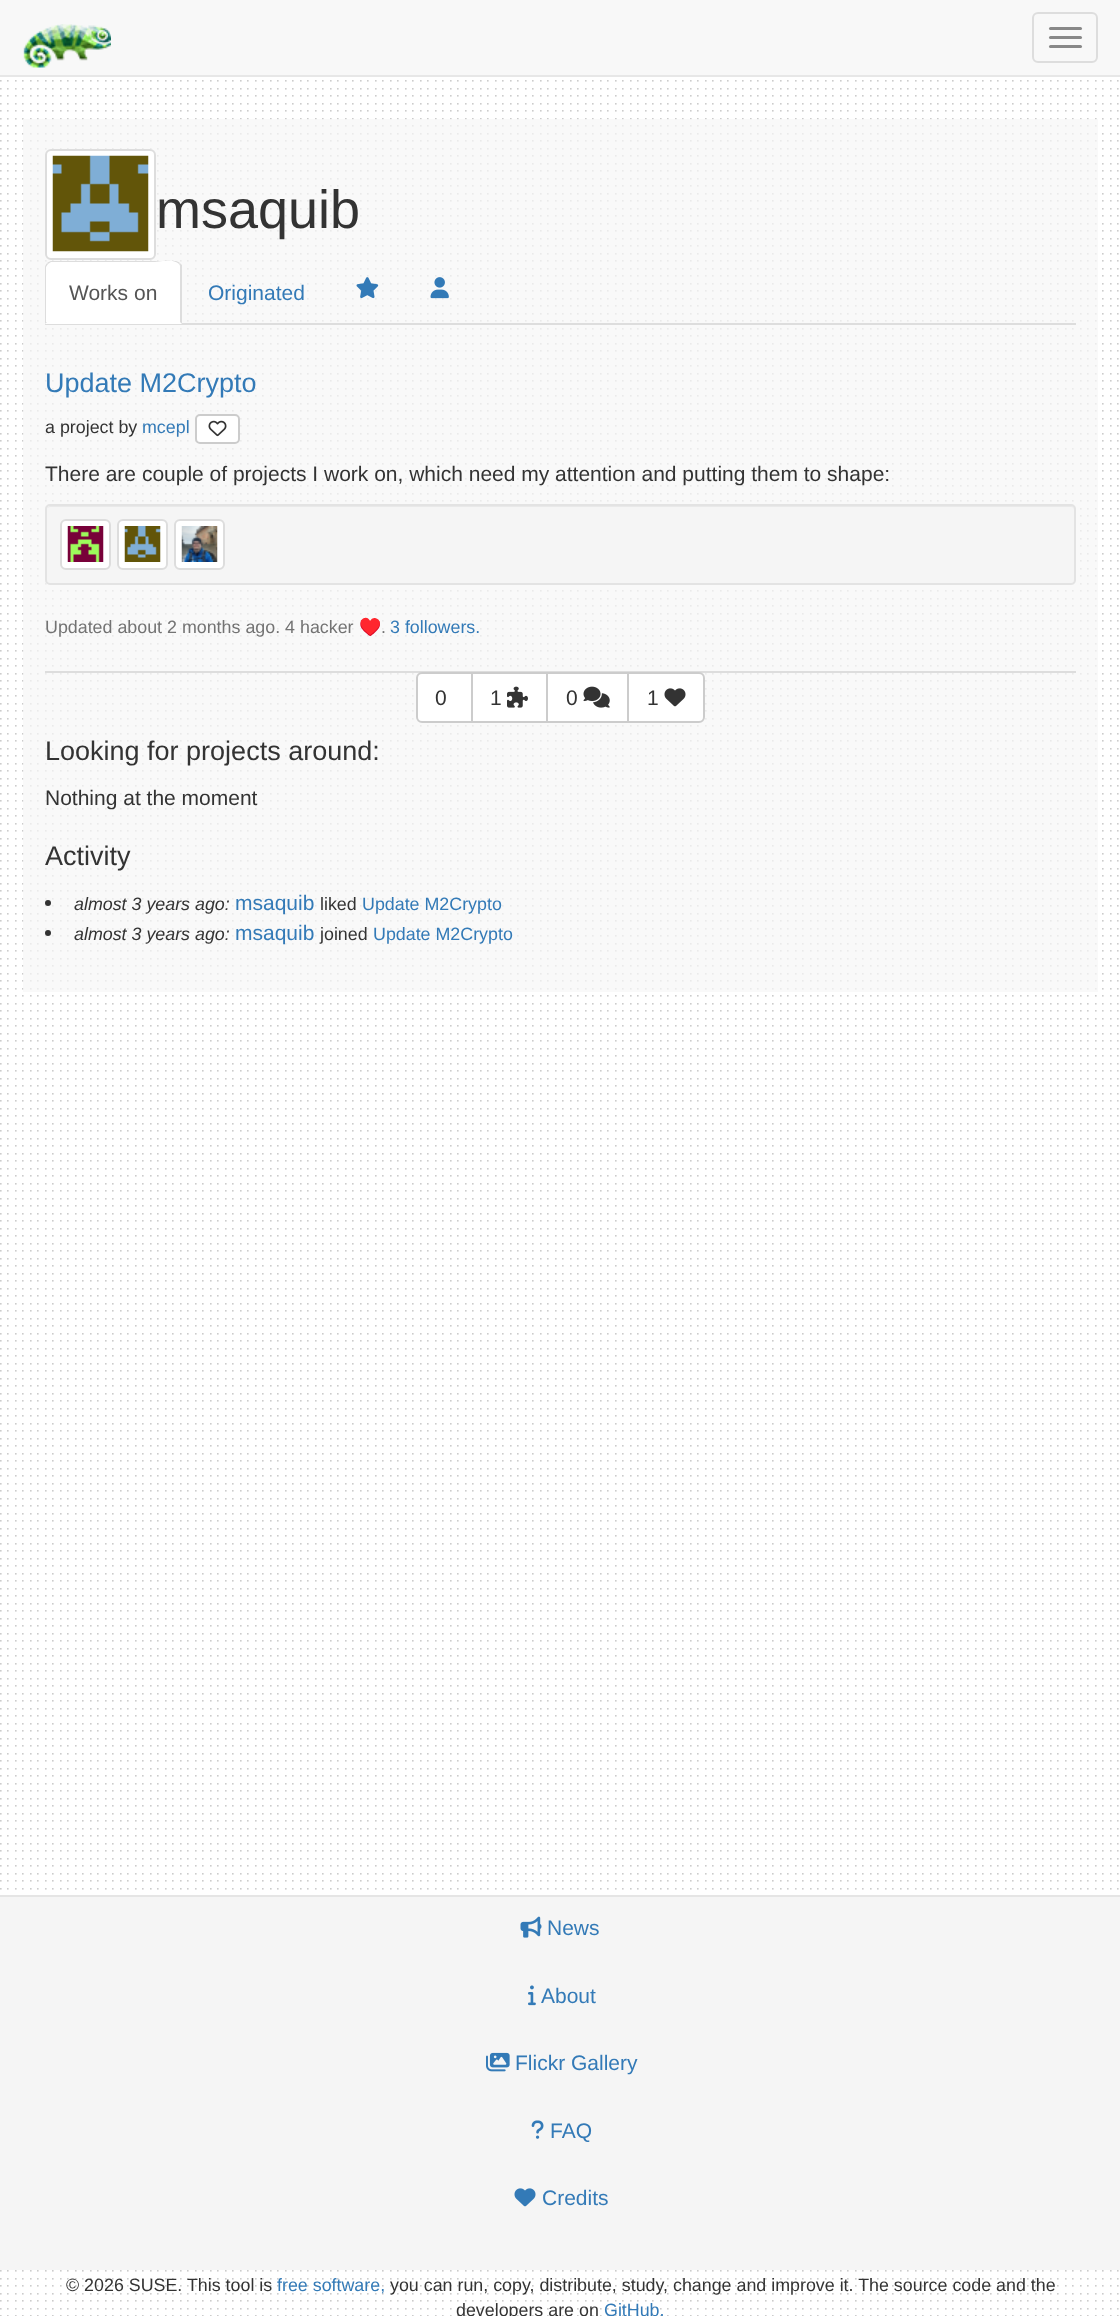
<!DOCTYPE html>
<meta charset="utf-8">
<style>body { margin: 0 } canvas { display: block }</style>
<canvas id="canvas" width="1120" height="2316"></canvas>
<script type="module">
  const canvas = document.getElementById("canvas");
  const ctx = canvas.getContext("2d");
  ctx.miterLimit = 4;
  ctx.fontKerning = "normal";
  async function loadImage(src) {
    const img = new Image();
    img.src = src;
    await img.decode();
    return img;
  }

  ctx.fillStyle = "#ffffff";
  ctx.fillRect(0, 0, 1120, 2316);
  ctx.drawImage(await loadImage("img1.png"), 0, 77, 1119, 2239);
  ctx.fillStyle = "#f8f8f8";
  ctx.fillRect(0, 0, 1120, 75);
  ctx.fillStyle = "#e7e7e7";
  ctx.fillRect(0, 75, 1120, 2);
  ctx.drawImage(await loadImage("img2.png"), 23, 24, 88, 44);
  ctx.beginPath();
  ctx.roundRect(1033, 13, 64, 49, 5);
  ctx.strokeStyle = "#dddddd";
  ctx.lineWidth = 2;
  ctx.stroke();
  ctx.fillStyle = "#888888";
  ctx.beginPath();
  ctx.roundRect(1049, 27, 33, 3, 1.5);
  ctx.fill();
  ctx.beginPath();
  ctx.roundRect(1049, 36, 33, 3, 1.5);
  ctx.fill();
  ctx.beginPath();
  ctx.roundRect(1049, 45, 33, 3, 1.5);
  ctx.fill();
  ctx.fillStyle = "rgba(246, 246, 246, 0.7)";
  ctx.fillRect(23, 119, 1075, 873);
  ctx.fillStyle = "#ffffff";
  ctx.beginPath();
  ctx.roundRect(46, 150, 109, 109, 5);
  ctx.fill();
  ctx.stroke();
  ctx.drawImage(await loadImage("img3.png"), 52, 155, 97, 97);
  ctx.font = "54px Liberation Sans";
  ctx.fillStyle = "#333333";
  ctx.fillText("msaquib", 156, 228);
  ctx.fillStyle = "#dddddd";
  ctx.fillRect(45, 323, 1031, 2);
  ctx.fillStyle = "#ffffff";
  ctx.beginPath();
  ctx.roundRect(45, 261, 137, 63, [6, 6, 0, 0]);
  ctx.fill();
  ctx.fillStyle = "#dddddd";
  ctx.beginPath();
  ctx.moveTo(51, 261);
  ctx.bezierCurveTo(50, 261, 48, 262, 47, 263);
  ctx.lineTo(48, 264);
  ctx.lineTo(51, 262);
  ctx.lineTo(155, 262);
  ctx.bezierCurveTo(155, 262, 174, 258, 179, 264);
  ctx.lineTo(180, 263);
  ctx.bezierCurveTo(179, 262, 177, 261, 176, 261);
  ctx.closePath();
  ctx.fill();
  ctx.beginPath();
  ctx.moveTo(182, 265);
  ctx.lineTo(182, 324);
  ctx.lineTo(180, 322);
  ctx.lineTo(180, 267);
  ctx.bezierCurveTo(180, 266, 180, 265, 179, 264);
  ctx.lineTo(180, 263);
  ctx.closePath();
  ctx.fill();
  ctx.beginPath();
  ctx.moveTo(45, 324);
  ctx.lineTo(47, 322);
  ctx.lineTo(46, 322);
  ctx.lineTo(46, 267);
  ctx.lineTo(48, 264);
  ctx.lineTo(47, 263);
  ctx.bezierCurveTo(46, 264, 45, 266, 45, 267);
  ctx.closePath();
  ctx.fill();
  ctx.font = "21px Liberation Sans";
  ctx.fillStyle = "#555555";
  ctx.fillText("Works on", 69, 300);
  ctx.fillStyle = "#337ab7";
  ctx.fillText("Originated", 208, 300);
  ctx.drawImage(await loadImage("img4.png"), 356, 277, 23, 22);
  ctx.drawImage(await loadImage("img5.png"), 430, 277, 19, 22);
  ctx.fillStyle = "#dddddd";
  ctx.fillRect(45, 671, 1031, 2);
  ctx.font = "27px Liberation Sans";
  ctx.fillStyle = "#337ab7";
  ctx.fillText("Update M2Crypto", 45, 392);
  ctx.font = "17.85px Liberation Sans";
  ctx.fillStyle = "#333333";
  ctx.fillText("a project by", 45, 433);
  ctx.fillStyle = "#337ab7";
  ctx.fillText("mcepl", 142, 433);
  ctx.fillStyle = "#ffffff";
  ctx.beginPath();
  ctx.roundRect(196, 415, 43, 28, 4);
  ctx.fill();
  ctx.strokeStyle = "#cccccc";
  ctx.stroke();
  ctx.drawImage(await loadImage("img6.png"), 208, 420, 19, 17);
  ctx.font = "21px Liberation Sans";
  ctx.fillStyle = "#333333";
  ctx.fillText("There are couple of projects I work on, which need my attention and putting them to shape:", 45, 481);
  ctx.fillStyle = "#f5f5f5";
  ctx.beginPath();
  ctx.roundRect(45, 504, 1031, 81, 5);
  ctx.fill();
  ctx.fillStyle = "#e9e9e9";
  ctx.beginPath();
  ctx.moveTo(50, 507);
  ctx.lineTo(1071, 507);
  ctx.bezierCurveTo(1073, 507, 1074, 508, 1074, 510);
  ctx.lineTo(1074, 509);
  ctx.bezierCurveTo(1074, 507, 1073, 506, 1071, 506);
  ctx.lineTo(50, 506);
  ctx.bezierCurveTo(49, 506, 48, 507, 47, 508);
  ctx.closePath();
  ctx.fill();
  ctx.beginPath();
  ctx.roundRect(46, 505, 1029, 79, 4);
  ctx.strokeStyle = "#e3e3e3";
  ctx.stroke();
  ctx.fillStyle = "#ffffff";
  ctx.beginPath();
  ctx.roundRect(61, 520, 49, 49, 5);
  ctx.fill();
  ctx.strokeStyle = "#dddddd";
  ctx.stroke();
  ctx.drawImage(await loadImage("img7.png"), 67, 526, 37, 36);
  ctx.beginPath();
  ctx.roundRect(118, 520, 49, 49, 5);
  ctx.fill();
  ctx.stroke();
  ctx.drawImage(await loadImage("img8.png"), 124, 526, 37, 36);
  ctx.beginPath();
  ctx.roundRect(175, 520, 49, 49, 5);
  ctx.fill();
  ctx.stroke();
  ctx.drawImage(await loadImage("img9.png"), 181, 526, 37, 36);
  ctx.font = "17.85px Liberation Sans";
  ctx.fillStyle = "#737373";
  ctx.fillText("Updated about 2 months ago. 4 hacker", 45, 633);
  ctx.font = "17.85px Noto Color Emoji";
  ctx.fillText("♥️", 359, 633);
  ctx.font = "17.85px Liberation Sans";
  ctx.fillText(".", 381, 633);
  ctx.fillStyle = "#337ab7";
  ctx.fillText("3 followers.", 390, 633);
  ctx.fillStyle = "#ffffff";
  ctx.beginPath();
  ctx.roundRect(417, 673, 55, 49, [5, 0, 0, 5]);
  ctx.fill();
  ctx.strokeStyle = "#cccccc";
  ctx.stroke();
  ctx.font = "21px Liberation Sans";
  ctx.fillStyle = "#333333";
  ctx.fillText("0", 435, 705);
  ctx.fillStyle = "#ffffff";
  ctx.beginPath();
  ctx.rect(472, 673, 75, 49);
  ctx.fill();
  ctx.stroke();
  ctx.fillStyle = "#333333";
  ctx.fillText("1", 490, 705);
  ctx.drawImage(await loadImage("img10.png"), 507, 686, 21, 22);
  ctx.fillStyle = "#ffffff";
  ctx.beginPath();
  ctx.rect(547, 673, 81, 49);
  ctx.fill();
  ctx.stroke();
  ctx.fillStyle = "#333333";
  ctx.fillText("0", 566, 705);
  ctx.drawImage(await loadImage("img11.png"), 583, 686, 27, 22);
  ctx.fillStyle = "#ffffff";
  ctx.beginPath();
  ctx.roundRect(628, 673, 76, 49, [0, 5, 5, 0]);
  ctx.fill();
  ctx.stroke();
  ctx.fillStyle = "#333333";
  ctx.fillText("1", 647, 705);
  ctx.drawImage(await loadImage("img12.png"), 664, 688, 22, 19);
  ctx.font = "27px Liberation Sans";
  ctx.fillText("Looking for projects around:", 45, 760);
  ctx.font = "21px Liberation Sans";
  ctx.fillText("Nothing at the moment", 45, 805);
  ctx.font = "27px Liberation Sans";
  ctx.fillText("Activity", 45, 865);
  ctx.beginPath();
  ctx.arc(48, 903, 3, 0, Math.PI * 2);
  ctx.fill();
  ctx.font = "italic 17.85px Liberation Sans";
  ctx.fillText("almost 3 years ago:", 74, 910);
  ctx.font = "21px Liberation Sans";
  ctx.fillStyle = "#337ab7";
  ctx.fillText("msaquib", 235, 910);
  ctx.font = "17.85px Liberation Sans";
  ctx.fillStyle = "#333333";
  ctx.fillText("liked", 320, 910);
  ctx.fillStyle = "#337ab7";
  ctx.fillText("Update M2Crypto", 362, 910);
  ctx.fillStyle = "#333333";
  ctx.beginPath();
  ctx.arc(48, 933, 3, 0, Math.PI * 2);
  ctx.fill();
  ctx.font = "italic 17.85px Liberation Sans";
  ctx.fillText("almost 3 years ago:", 74, 940);
  ctx.font = "21px Liberation Sans";
  ctx.fillStyle = "#337ab7";
  ctx.fillText("msaquib", 235, 940);
  ctx.font = "17.85px Liberation Sans";
  ctx.fillStyle = "#333333";
  ctx.fillText("joined", 320, 940);
  ctx.fillStyle = "#337ab7";
  ctx.fillText("Update M2Crypto", 373, 940);
  ctx.fillStyle = "#f5f5f5";
  ctx.fillRect(0, 1897, 1120, 373);
  ctx.fillStyle = "#e5e5e5";
  ctx.fillRect(0, 1895, 1120, 2);
  ctx.drawImage(await loadImage("img13.png"), 520, 1916, 22, 22);
  ctx.font = "21px Liberation Sans";
  ctx.fillStyle = "#337ab7";
  ctx.fillText("News", 547, 1935);
  ctx.drawImage(await loadImage("img14.png"), 528, 1985, 8, 21);
  ctx.fillText("About", 541, 2003);
  ctx.drawImage(await loadImage("img15.png"), 486, 2052, 24, 20);
  ctx.fillText("Flickr Gallery", 515, 2070);
  ctx.drawImage(await loadImage("img16.png"), 531, 2120, 13, 19);
  ctx.fillText("FAQ", 550, 2138);
  ctx.drawImage(await loadImage("img17.png"), 514, 2188, 22, 19);
  ctx.fillText("Credits", 542, 2205);
  ctx.font = "17.85px Liberation Sans";
  ctx.fillStyle = "#333333";
  ctx.fillText("© 2026 SUSE. This tool is", 66, 2291);
  ctx.fillStyle = "#337ab7";
  ctx.fillText("free software,", 277, 2291);
  ctx.fillStyle = "#333333";
  ctx.fillText("you can run, copy, distribute, study, change and improve it. The source code and the", 390, 2291);
  ctx.fillText("developers are on", 456, 2316);
  ctx.fillStyle = "#337ab7";
  ctx.fillText("GitHub.", 604, 2316);
</script>
